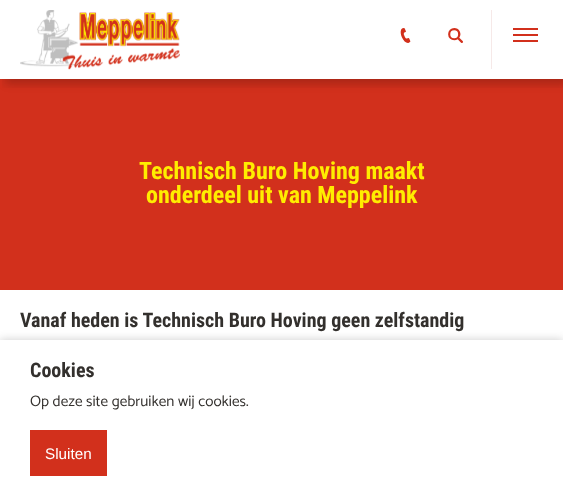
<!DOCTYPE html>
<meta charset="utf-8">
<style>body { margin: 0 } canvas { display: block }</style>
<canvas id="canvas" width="563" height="496"></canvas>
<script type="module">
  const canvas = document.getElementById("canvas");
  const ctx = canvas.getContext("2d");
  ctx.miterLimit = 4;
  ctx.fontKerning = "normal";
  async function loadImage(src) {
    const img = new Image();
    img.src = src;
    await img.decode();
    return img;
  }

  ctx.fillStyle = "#ffffff";
  ctx.fillRect(0, 0, 563, 496);
  ctx.fillStyle = "#d2301c";
  ctx.fillRect(0, 79, 563, 211);
  ctx.fillStyle = "rgba(0, 0, 0, 0.1)";
  ctx.filter = "blur(5px)";
  ctx.beginPath();
  ctx.rect(5, 5, 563, 79);
  ctx.fill();
  ctx.filter = "none";
  ctx.fillStyle = "#ffffff";
  ctx.fillRect(0, 0, 563, 79);
  ctx.save();
  ctx.beginPath();
  ctx.rect(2, 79, 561, 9);
  ctx.clip();
  ctx.fillStyle = "rgba(0, 0, 0, 0.1)";
  ctx.filter = "blur(5px)";
  ctx.beginPath();
  ctx.rect(5, 5, 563, 79);
  ctx.fill();
  ctx.filter = "none";
  ctx.restore();
  ctx.drawImage(await loadImage("img1.png"), 20, 10, 160, 60);
  ctx.drawImage(await loadImage("img2.png"), 400, 28, 11, 15);
  ctx.drawImage(await loadImage("img3.png"), 448, 28, 15, 15);
  ctx.fillStyle = "#f6e9e8";
  ctx.fillRect(491, 10, 1, 59);
  ctx.fillStyle = "#d2301c";
  ctx.fillRect(513, 34, 25, 2);
  ctx.fillRect(513, 28, 25, 2);
  ctx.fillRect(513, 40, 25, 2);
  ctx.font = "bold 24px Roboto Condensed";
  ctx.fillStyle = "#ffed00";
  ctx.fillText("Technisch Buro Hoving maakt", 139, 179);
  ctx.fillText("onderdeel uit van Meppelink", 146, 203);
  ctx.font = "bold 20px Roboto Condensed";
  ctx.fillStyle = "#33302d";
  ctx.fillText("Vanaf heden is Technisch Buro Hoving geen zelfstandig", 20, 327);
  ctx.fillStyle = "rgba(0, 0, 0, 0.2)";
  ctx.filter = "blur(5px)";
  ctx.beginPath();
  ctx.rect(0, 340, 563, 156);
  ctx.fill();
  ctx.filter = "none";
  ctx.fillStyle = "#ffffff";
  ctx.fillRect(0, 340, 563, 156);
  ctx.fillStyle = "#33302d";
  ctx.fillText("Cookies", 30, 377);
  ctx.font = "15.25px Catamaran";
  ctx.fillText("Op deze site gebruiken wij cookies.", 30, 406);
  ctx.fillStyle = "#d2301c";
  ctx.fillRect(30, 430, 77, 46);
  ctx.font = "15.25px Liberation Sans";
  ctx.fillStyle = "#ffffff";
  ctx.fillText("Sluiten", 45, 459);
</script>
